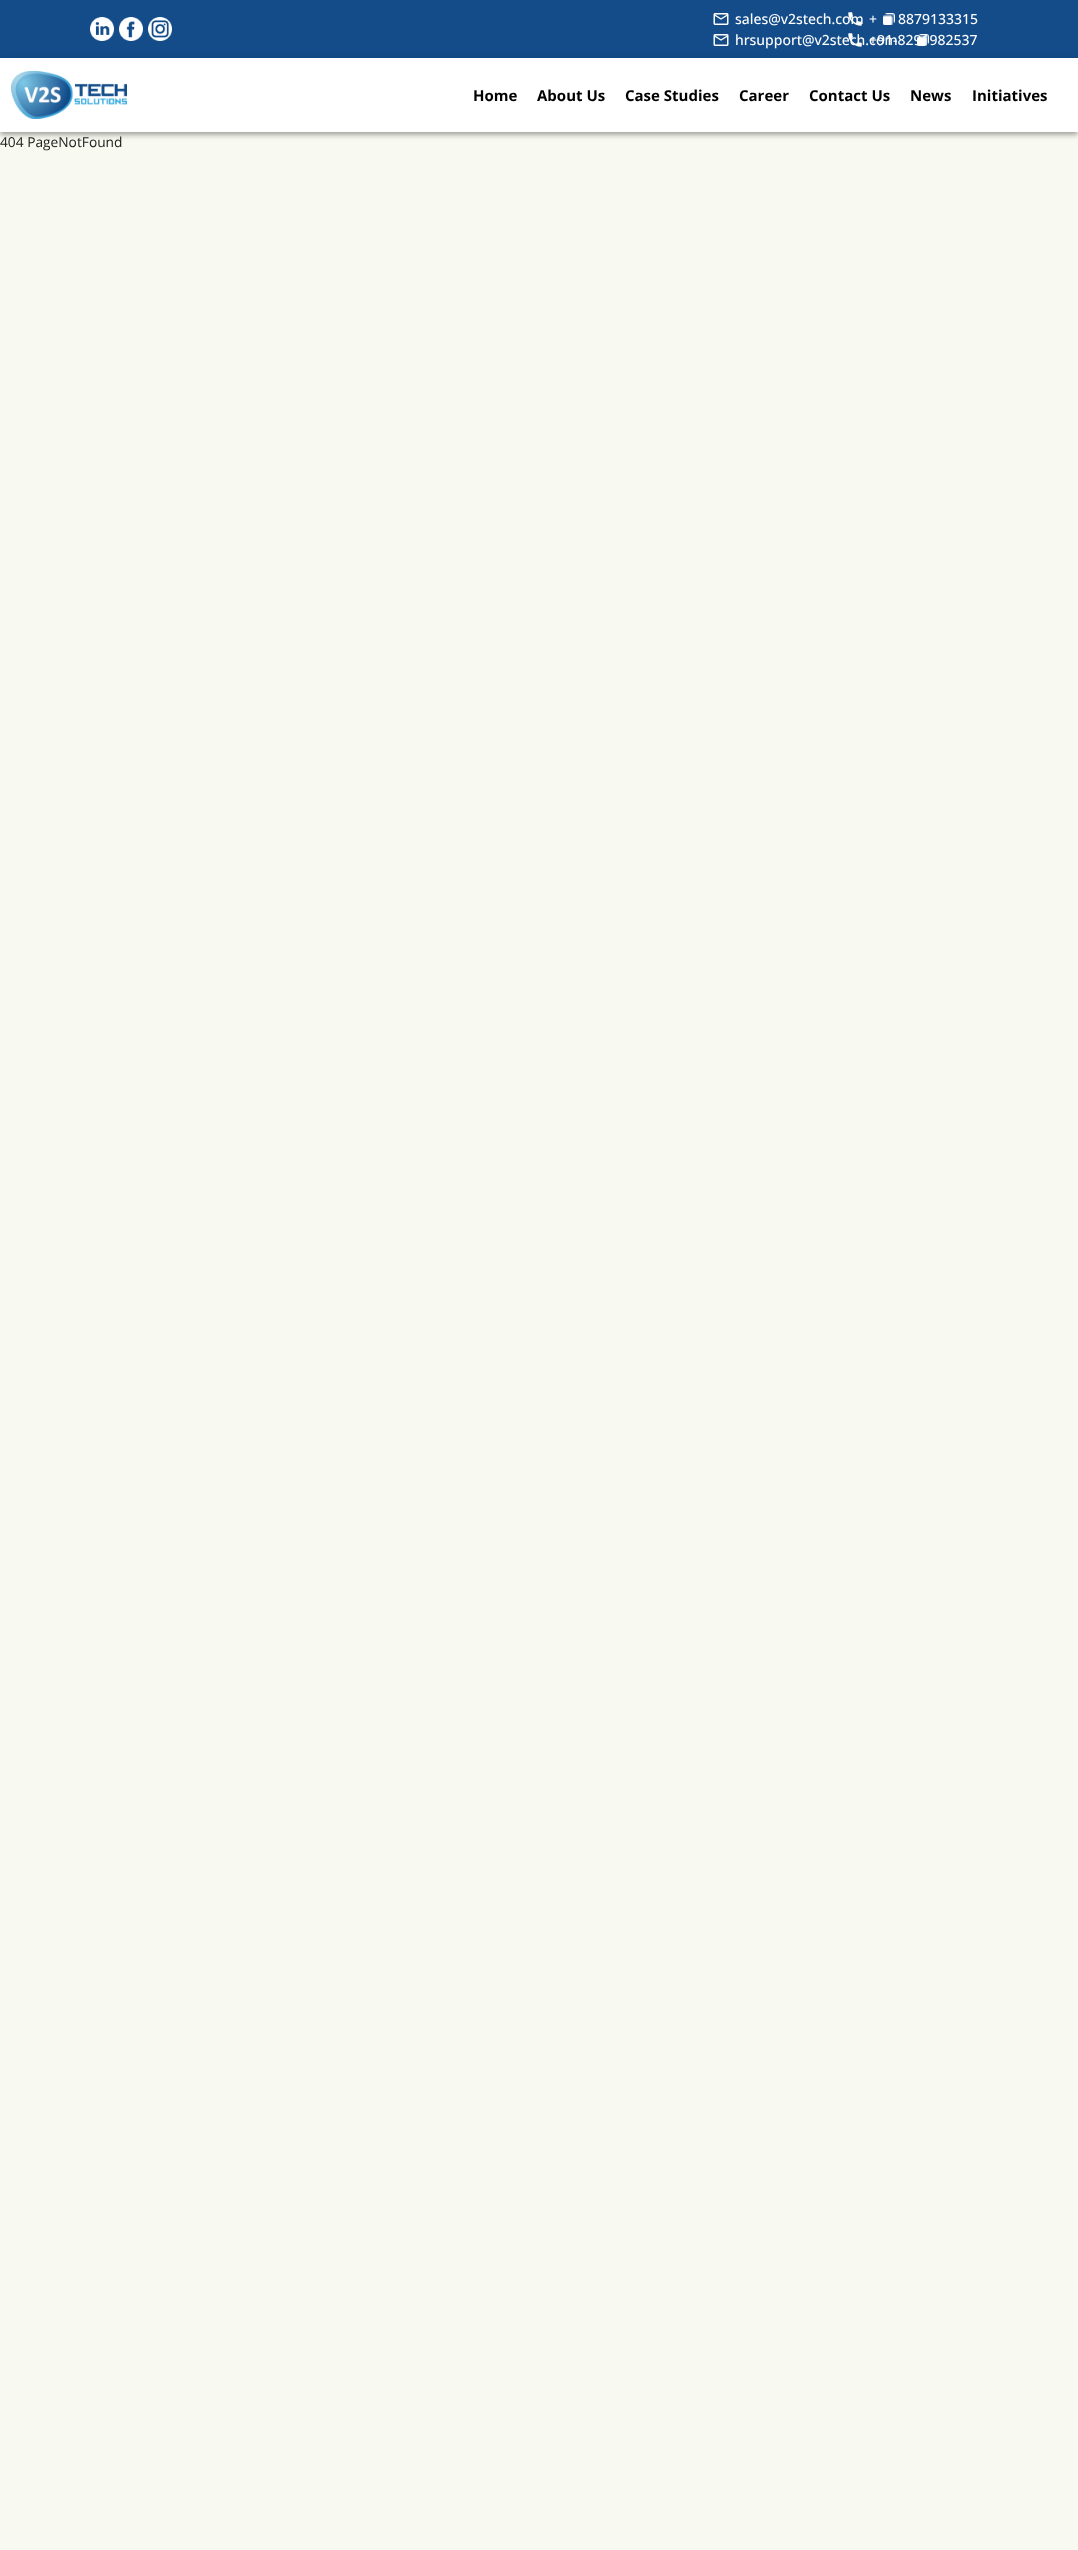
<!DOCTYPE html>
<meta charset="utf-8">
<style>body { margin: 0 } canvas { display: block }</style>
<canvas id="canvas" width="1078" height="2550"></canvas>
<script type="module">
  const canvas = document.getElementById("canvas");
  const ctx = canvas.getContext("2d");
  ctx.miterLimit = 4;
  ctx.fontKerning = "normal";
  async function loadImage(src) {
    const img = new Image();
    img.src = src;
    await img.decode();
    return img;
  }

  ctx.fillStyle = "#ffffff";
  ctx.fillRect(0, 0, 1078, 2550);
  ctx.fillStyle = "#134c89";
  ctx.fillRect(0, 0, 1078, 58);
  ctx.drawImage(await loadImage("img1.png"), 90, 17, 24, 24);
  ctx.drawImage(await loadImage("img2.png"), 119, 17, 24, 24);
  ctx.drawImage(await loadImage("img3.png"), 148, 17, 24, 24);
  ctx.drawImage(await loadImage("img4.png"), 713, 13, 16, 12);
  ctx.font = "500 14px Open Sans";
  ctx.fillStyle = "#ffffff";
  ctx.fillText("sales@v2stech.com", 735, 24);
  ctx.drawImage(await loadImage("img5.png"), 883, 13, 12, 12);
  ctx.drawImage(await loadImage("img6.png"), 848, 12, 14, 14);
  ctx.fillText("+", 869, 24);
  ctx.fillText("8879133315", 898, 24);
  ctx.drawImage(await loadImage("img4.png"), 713, 34, 16, 12);
  ctx.fillText("hrsupport@v2stech.com", 735, 45);
  ctx.drawImage(await loadImage("img7.png"), 917, 34, 12, 12);
  ctx.drawImage(await loadImage("img8.png"), 848, 33, 14, 14);
  ctx.fillText("+91-8291982537", 869, 45);
  ctx.fillStyle = "#f8f9f0";
  ctx.fillRect(0, 132, 1078, 2418);
  ctx.save();
  ctx.beginPath();
  ctx.moveTo(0, 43);
  ctx.lineTo(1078, 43);
  ctx.lineTo(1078, 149);
  ctx.lineTo(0, 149);
  ctx.closePath();
  ctx.moveTo(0, 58);
  ctx.lineTo(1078, 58);
  ctx.lineTo(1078, 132);
  ctx.lineTo(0, 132);
  ctx.closePath();
  ctx.clip("evenodd");
  ctx.fillStyle = "rgba(0, 0, 0, 0.12)";
  ctx.filter = "blur(5px)";
  ctx.beginPath();
  ctx.rect(0, 59, 1078, 74);
  ctx.fill();
  ctx.filter = "none";
  ctx.restore();
  ctx.save();
  ctx.beginPath();
  ctx.rect(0, 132, 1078, 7);
  ctx.clip();
  ctx.fillStyle = "rgba(0, 0, 0, 0.14)";
  ctx.filter = "blur(2.5px)";
  ctx.beginPath();
  ctx.rect(0, 62, 1078, 74);
  ctx.fill();
  ctx.filter = "none";
  ctx.restore();
  ctx.save();
  ctx.beginPath();
  ctx.rect(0, 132, 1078, 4);
  ctx.clip();
  ctx.fillStyle = "rgba(0, 0, 0, 0.2)";
  ctx.filter = "blur(2px)";
  ctx.beginPath();
  ctx.rect(1, 61, 1076, 72);
  ctx.fill();
  ctx.filter = "none";
  ctx.restore();
  ctx.drawImage(await loadImage("img9.png"), 11, 71, 116, 48);
  ctx.font = "bold 15px Open Sans";
  ctx.fillStyle = "#000000";
  ctx.fillText("Home", 473, 101);
  ctx.fillText("About Us", 537, 101);
  ctx.fillText("Case Studies", 625, 101);
  ctx.fillText("Career", 739, 101);
  ctx.fillText("Contact Us", 809, 101);
  ctx.fillText("News", 910, 101);
  ctx.fillText("Initiatives", 972, 101);
  ctx.font = "13.75px Open Sans";
  ctx.fillStyle = "#20201f";
  ctx.fillText("404 PageNotFound", 0, 147);
</script>
